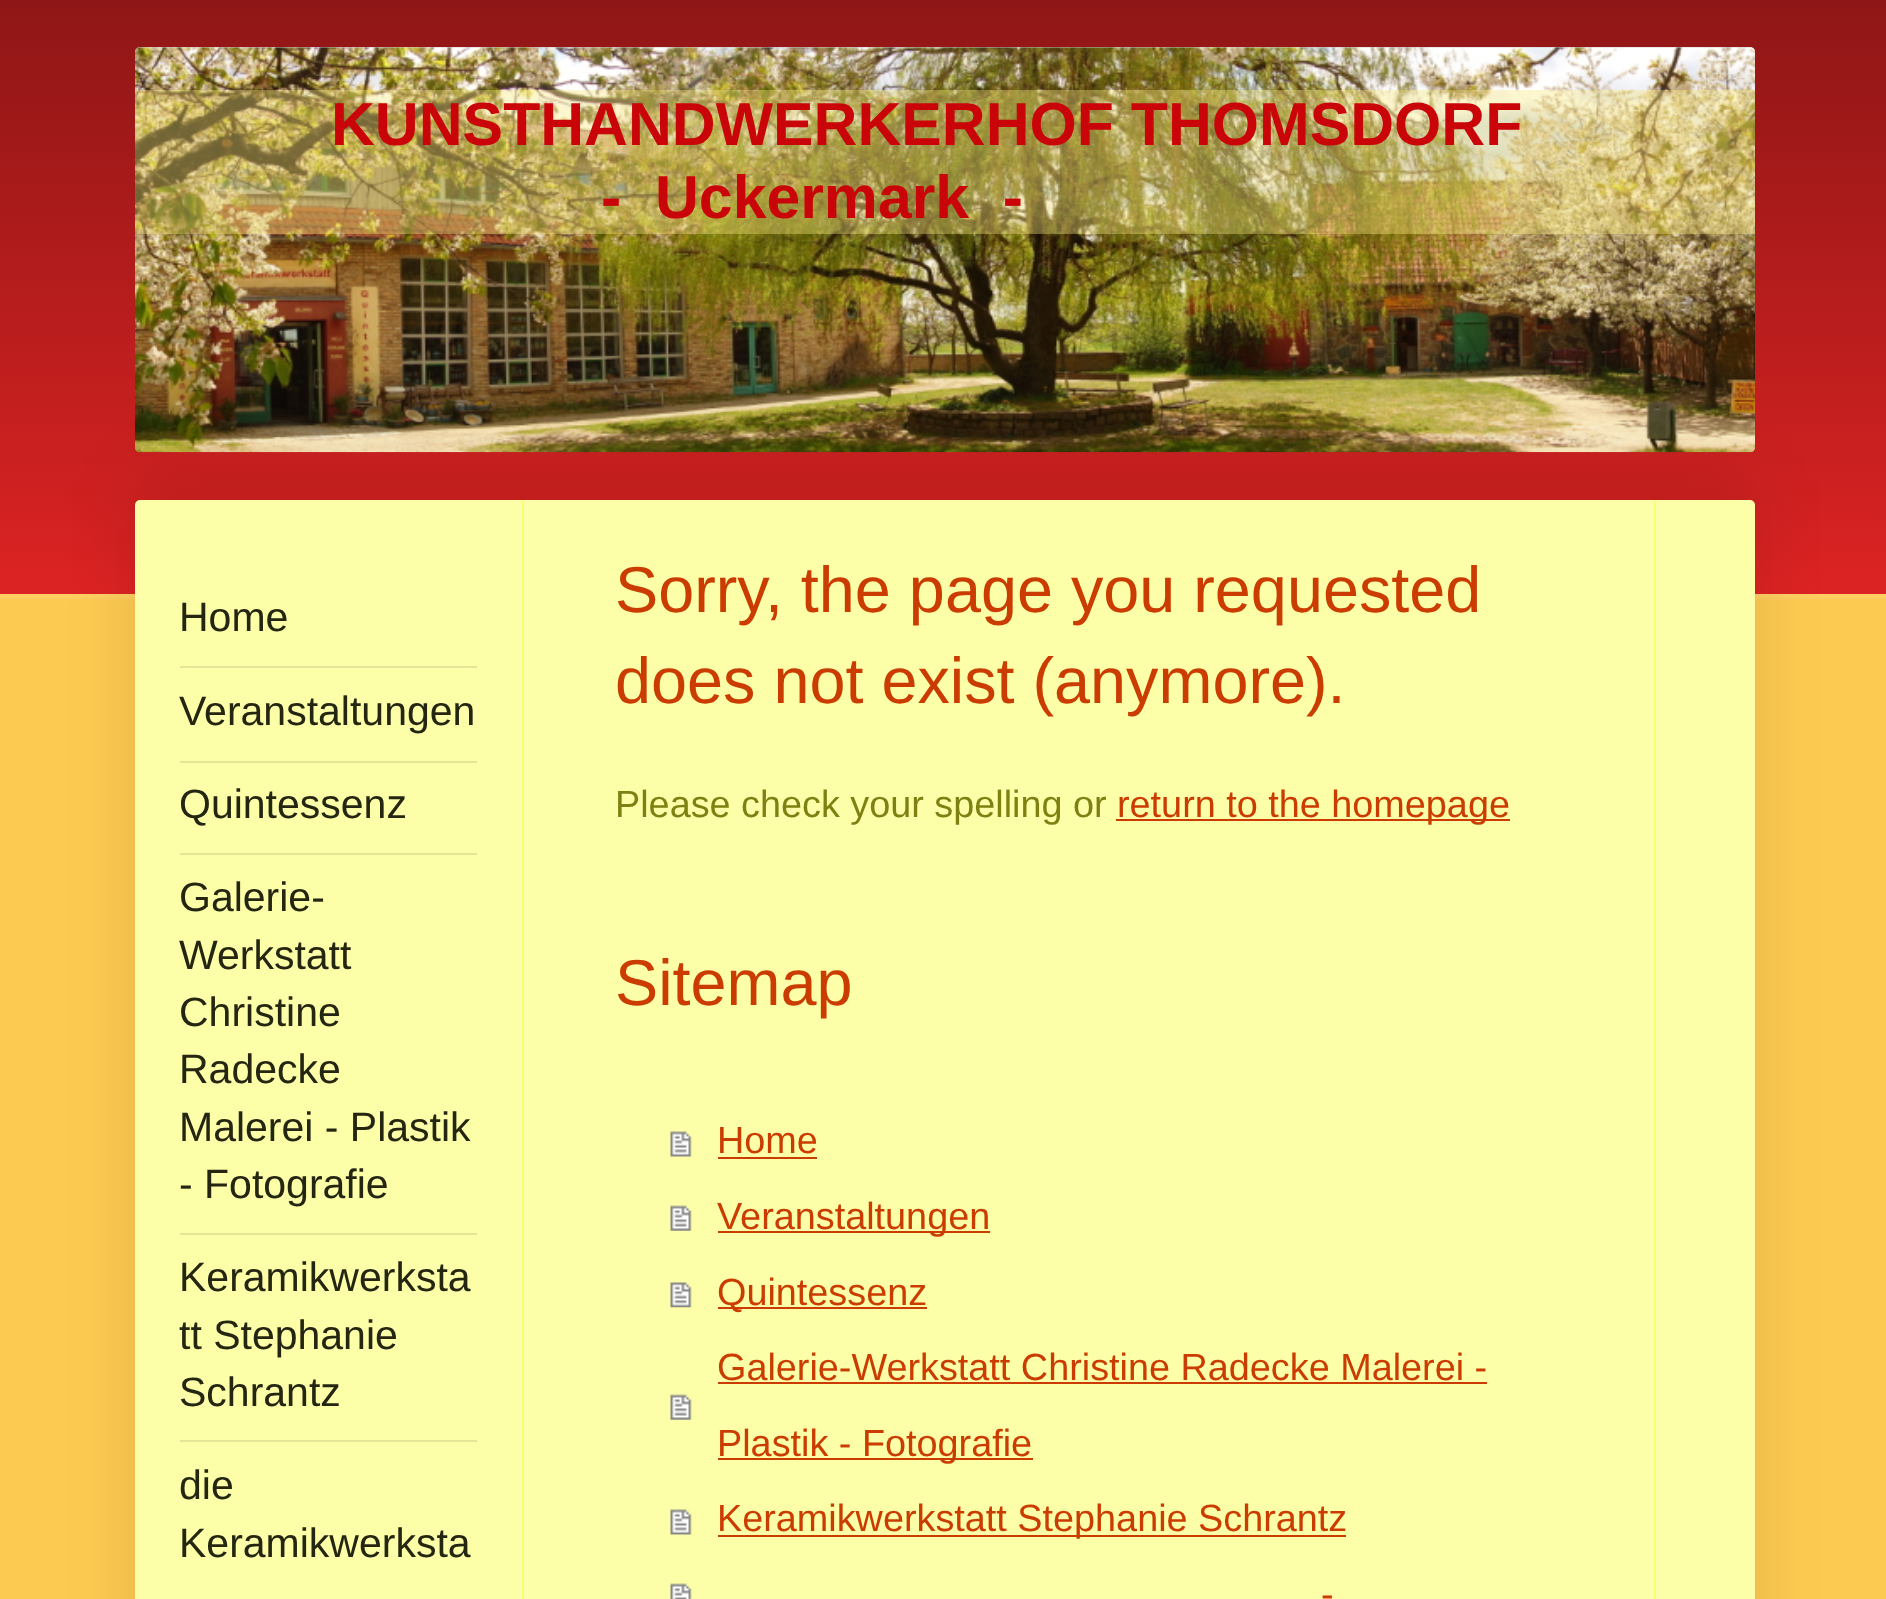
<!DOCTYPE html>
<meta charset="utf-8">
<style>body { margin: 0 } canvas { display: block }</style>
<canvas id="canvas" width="1886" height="1599"></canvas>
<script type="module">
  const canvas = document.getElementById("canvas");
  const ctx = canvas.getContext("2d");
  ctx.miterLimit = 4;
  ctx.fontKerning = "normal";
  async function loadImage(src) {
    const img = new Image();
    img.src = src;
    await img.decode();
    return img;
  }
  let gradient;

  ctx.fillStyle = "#fdca51";
  ctx.fillRect(0, 0, 1886, 1599);
  ctx.fillStyle = "rgba(255, 255, 255, 0.1)";
  ctx.filter = "blur(1px)";
  ctx.beginPath();
  ctx.rect(0, 5, 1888, 594);
  ctx.fill();
  ctx.filter = "none";
  gradient = ctx.createLinearGradient(0, 594, 0, 0);
  gradient.addColorStop(0, "#dd2323");
  gradient.addColorStop(1, "#8f1616");
  ctx.fillStyle = gradient;
  ctx.fillRect(0, 0, 1886, 594);
  ctx.fillStyle = "#cccccc";
  ctx.beginPath();
  ctx.roundRect(135, 47, 1620, 405, 5);
  ctx.fill();
  ctx.drawImage(await loadImage("img1.png"), 135, 47, 1620, 406);
  ctx.fillStyle = "rgba(249, 233, 129, 0.38)";
  ctx.fillRect(135, 90, 1620, 144);
  ctx.font = "bold 60.75px Liberation Sans";
  ctx.fillStyle = "#c90509";
  ctx.fillText("KUNSTHANDWERKERHOF THOMSDORF", 331, 145);
  ctx.fillText("-  Uckermark  -", 601, 218);
  ctx.fillStyle = "rgba(0, 0, 0, 0.1)";
  ctx.filter = "blur(34px)";
  ctx.beginPath();
  ctx.roundRect(135, 477, 1620, 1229, 5);
  ctx.fill();
  ctx.filter = "none";
  ctx.fillStyle = "#fcfea8";
  ctx.beginPath();
  ctx.roundRect(135, 500, 1620, 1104, 5);
  ctx.fill();
  ctx.fillStyle = "#e3e597";
  ctx.fillRect(180, 666, 297, 2);
  ctx.font = "41px Liberation Sans";
  ctx.fillStyle = "#252611";
  ctx.fillText("Home", 179, 631);
  ctx.fillStyle = "#e3e597";
  ctx.fillRect(180, 761, 297, 2);
  ctx.fillStyle = "#252611";
  ctx.fillText("Veranstaltungen", 179, 725);
  ctx.fillStyle = "#e3e597";
  ctx.fillRect(180, 853, 297, 2);
  ctx.fillStyle = "#252611";
  ctx.fillText("Quintessenz", 179, 818);
  ctx.fillStyle = "#e3e597";
  ctx.fillRect(180, 1233, 297, 2);
  ctx.fillStyle = "#252611";
  ctx.fillText("Galerie-", 179, 911);
  ctx.fillText("Werkstatt", 179, 969);
  ctx.fillText("Christine", 179, 1026);
  ctx.fillText("Radecke", 179, 1083);
  ctx.fillText("Malerei - Plastik", 179, 1141);
  ctx.fillText("- Fotografie", 179, 1198);
  ctx.fillStyle = "#e3e597";
  ctx.fillRect(180, 1440, 297, 2);
  ctx.fillStyle = "#252611";
  ctx.fillText("Keramikwerksta", 179, 1291);
  ctx.fillText("tt Stephanie", 179, 1349);
  ctx.fillText("Schrantz", 179, 1406);
  ctx.fillText("die", 179, 1499);
  ctx.fillText("Keramikwerksta", 179, 1557);
  ctx.fillStyle = "#fafd76";
  ctx.fillRect(1654, 500, 2, 1099);
  ctx.fillRect(522, 500, 2, 1099);
  ctx.font = "64.75px Liberation Sans";
  ctx.fillStyle = "#cb3c02";
  ctx.fillText("Sorry, the page you requested", 615, 612);
  ctx.fillText("does not exist (anymore).", 615, 703);
  ctx.font = "37.8px Liberation Sans";
  ctx.fillStyle = "#7e8112";
  ctx.fillText("Please check your spelling or", 615, 817);
  ctx.fillStyle = "#cb3c02";
  ctx.fillRect(1116, 819, 394, 2);
  ctx.fillText("return to the homepage", 1117, 817);
  ctx.font = "64.75px Liberation Sans";
  ctx.fillText("Sitemap", 615, 1005);
  ctx.drawImage(await loadImage("img2.png"), 670, 1131, 22, 26);
  ctx.font = "37.8px Liberation Sans";
  ctx.fillText("Home", 717, 1153);
  ctx.fillRect(718, 1157, 99, 2);
  ctx.drawImage(await loadImage("img3.png"), 670, 1205, 22, 26);
  ctx.fillRect(718, 1231, 272, 2);
  ctx.fillText("Veranstaltungen", 717, 1229);
  ctx.drawImage(await loadImage("img4.png"), 670, 1282, 22, 26);
  ctx.fillRect(718, 1307, 209, 2);
  ctx.fillText("Quintessenz", 717, 1305);
  ctx.drawImage(await loadImage("img3.png"), 670, 1394, 22, 26);
  ctx.fillText("Galerie-Werkstatt Christine Radecke Malerei -", 717, 1380);
  ctx.fillRect(718, 1382, 769, 2);
  ctx.fillRect(718, 1458, 315, 2);
  ctx.fillText("Plastik - Fotografie", 717, 1456);
  ctx.drawImage(await loadImage("img2.png"), 670, 1509, 22, 26);
  ctx.fillRect(718, 1535, 628, 2);
  ctx.fillText("Keramikwerkstatt Stephanie Schrantz", 717, 1531);
  ctx.drawImage(await loadImage("img5.png"), 670, 1583, 22, 16);
  ctx.fillText("-", 1321, 1607);
</script>
